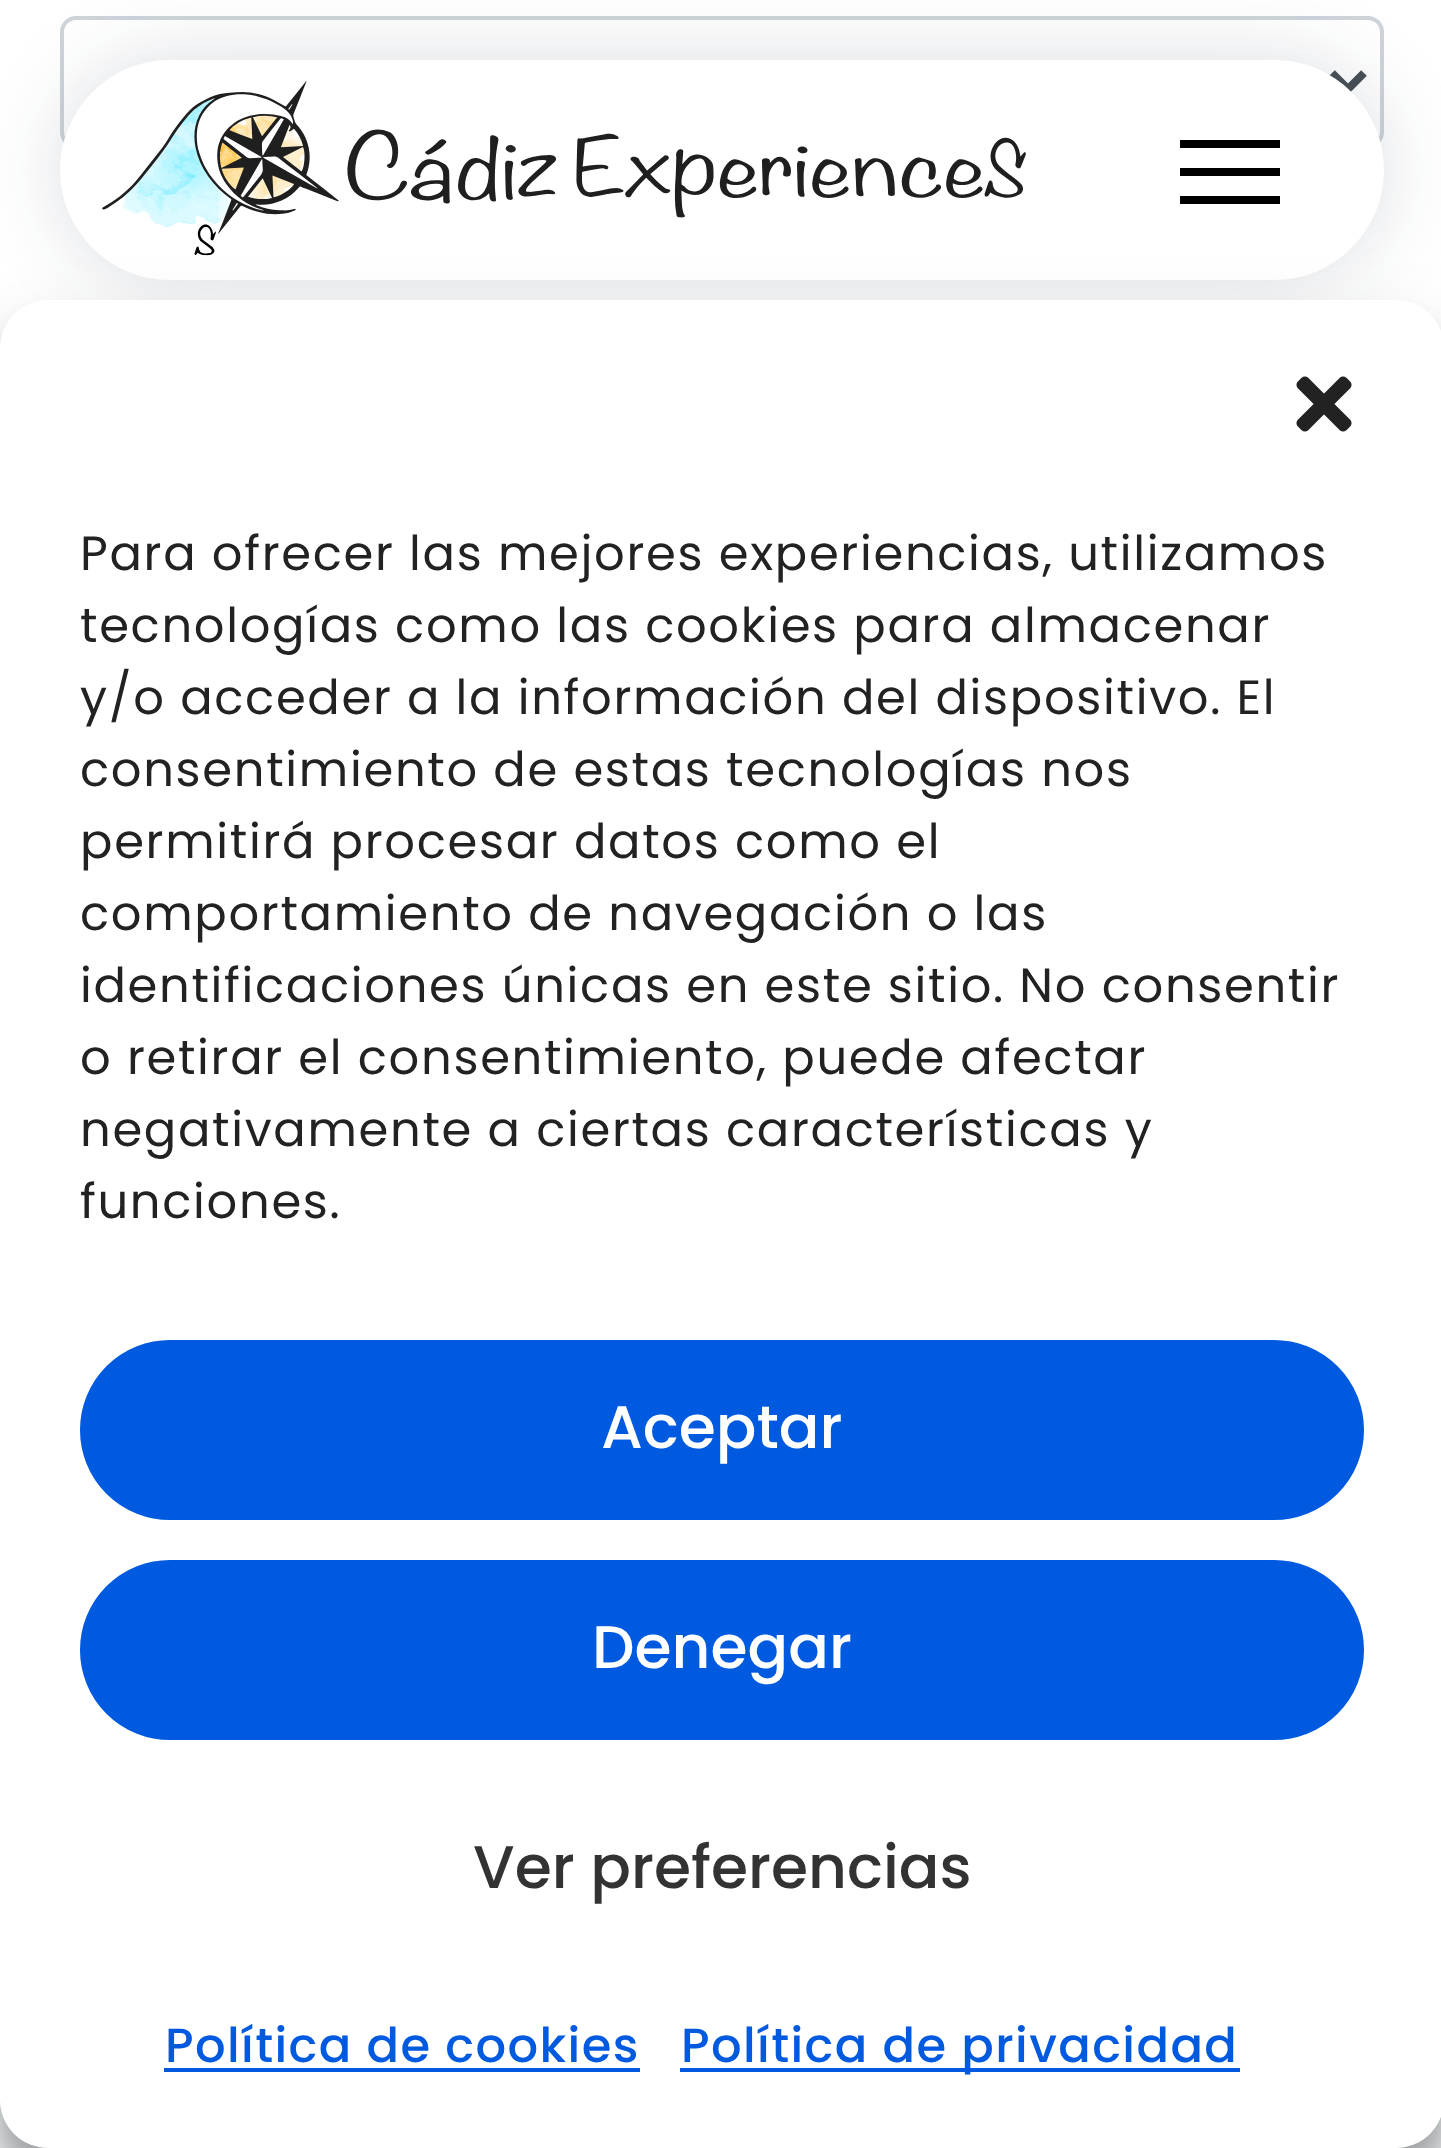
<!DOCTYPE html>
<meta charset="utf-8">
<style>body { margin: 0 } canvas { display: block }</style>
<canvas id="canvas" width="1441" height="2148"></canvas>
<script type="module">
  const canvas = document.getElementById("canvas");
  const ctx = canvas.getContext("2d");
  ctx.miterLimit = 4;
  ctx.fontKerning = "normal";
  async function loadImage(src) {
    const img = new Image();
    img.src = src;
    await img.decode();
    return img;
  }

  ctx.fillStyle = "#ffffff";
  ctx.fillRect(0, 0, 1441, 2148);
  ctx.beginPath();
  ctx.roundRect(62, 18, 1320, 128, 14);
  ctx.strokeStyle = "#ced4da";
  ctx.lineWidth = 4;
  ctx.stroke();
  ctx.beginPath();
  ctx.moveTo(1332, 73);
  ctx.lineTo(1348, 89);
  ctx.lineTo(1364, 73);
  ctx.strokeStyle = "#495057";
  ctx.lineWidth = 8;
  ctx.stroke();
  ctx.fillStyle = "rgba(20, 31, 60, 0.15)";
  ctx.filter = "blur(40px)";
  ctx.beginPath();
  ctx.roundRect(60, 60, 1324, 220, 110);
  ctx.fill();
  ctx.filter = "none";
  ctx.fillStyle = "#ffffff";
  ctx.beginPath();
  ctx.roundRect(60, 60, 1324, 220, 110);
  ctx.fill();
  ctx.drawImage(await loadImage("img1.png"), 102, 81, 924, 175);
  ctx.fillStyle = "#000000";
  ctx.fillRect(1180, 140, 100, 8);
  ctx.fillRect(1180, 168, 100, 8);
  ctx.fillRect(1180, 196, 100, 8);
  ctx.fillStyle = "#f4f8fa";
  ctx.fillRect(0, 2100, 1441, 48);
  ctx.fillStyle = "rgba(0, 0, 0, 0.23)";
  ctx.filter = "blur(12px)";
  ctx.beginPath();
  ctx.roundRect(0, 324, 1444, 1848, 48);
  ctx.fill();
  ctx.filter = "none";
  ctx.fillStyle = "rgba(0, 0, 0, 0.19)";
  ctx.filter = "blur(40px)";
  ctx.beginPath();
  ctx.roundRect(0, 340, 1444, 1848, 48);
  ctx.fill();
  ctx.filter = "none";
  ctx.fillStyle = "#ffffff";
  ctx.beginPath();
  ctx.roundRect(0, 300, 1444, 1848, 48);
  ctx.fill();
  ctx.drawImage(await loadImage("img2.png"), 1296, 376, 56, 56);
  ctx.letterSpacing = "1.68px";
  ctx.font = "48px Poppins";
  ctx.fillStyle = "#222222";
  ctx.fillText("Para ofrecer las mejores experiencias, utilizamos", 80, 570);
  ctx.fillText("tecnologías como las cookies para almacenar", 80, 642);
  ctx.fillText("y/o acceder a la información del dispositivo. El", 80, 714);
  ctx.fillText("consentimiento de estas tecnologías nos", 80, 786);
  ctx.fillText("permitirá procesar datos como el", 80, 858);
  ctx.fillText("comportamiento de navegación o las", 80, 930);
  ctx.fillText("identificaciones únicas en este sitio. No consentir", 80, 1002);
  ctx.fillText("o retirar el consentimiento, puede afectar", 80, 1074);
  ctx.fillText("negativamente a ciertas características y", 80, 1146);
  ctx.fillText("funciones.", 80, 1218);
  ctx.fillStyle = "#005ae0";
  ctx.beginPath();
  ctx.roundRect(82, 1342, 1280, 176, 88);
  ctx.fill();
  ctx.strokeStyle = "#005ae0";
  ctx.lineWidth = 4;
  ctx.stroke();
  ctx.letterSpacing = "0px";
  ctx.font = "500 60px Poppins";
  ctx.fillStyle = "#ffffff";
  ctx.fillText("Aceptar", 601, 1448);
  ctx.fillStyle = "#005ae0";
  ctx.beginPath();
  ctx.roundRect(82, 1562, 1280, 176, 88);
  ctx.fill();
  ctx.stroke();
  ctx.fillStyle = "#ffffff";
  ctx.fillText("Denegar", 592, 1668);
  ctx.fillStyle = "#333333";
  ctx.fillText("Ver preferencias", 473, 1888);
  ctx.letterSpacing = "1.4px";
  ctx.font = "500 48px Poppins";
  ctx.fillStyle = "#005ae0";
  ctx.fillText("Política de cookies", 165, 2062);
  ctx.fillRect(164, 2068, 476, 4);
  ctx.fillRect(680, 2068, 560, 4);
  ctx.fillText("Política de privacidad", 681, 2062);
</script>
